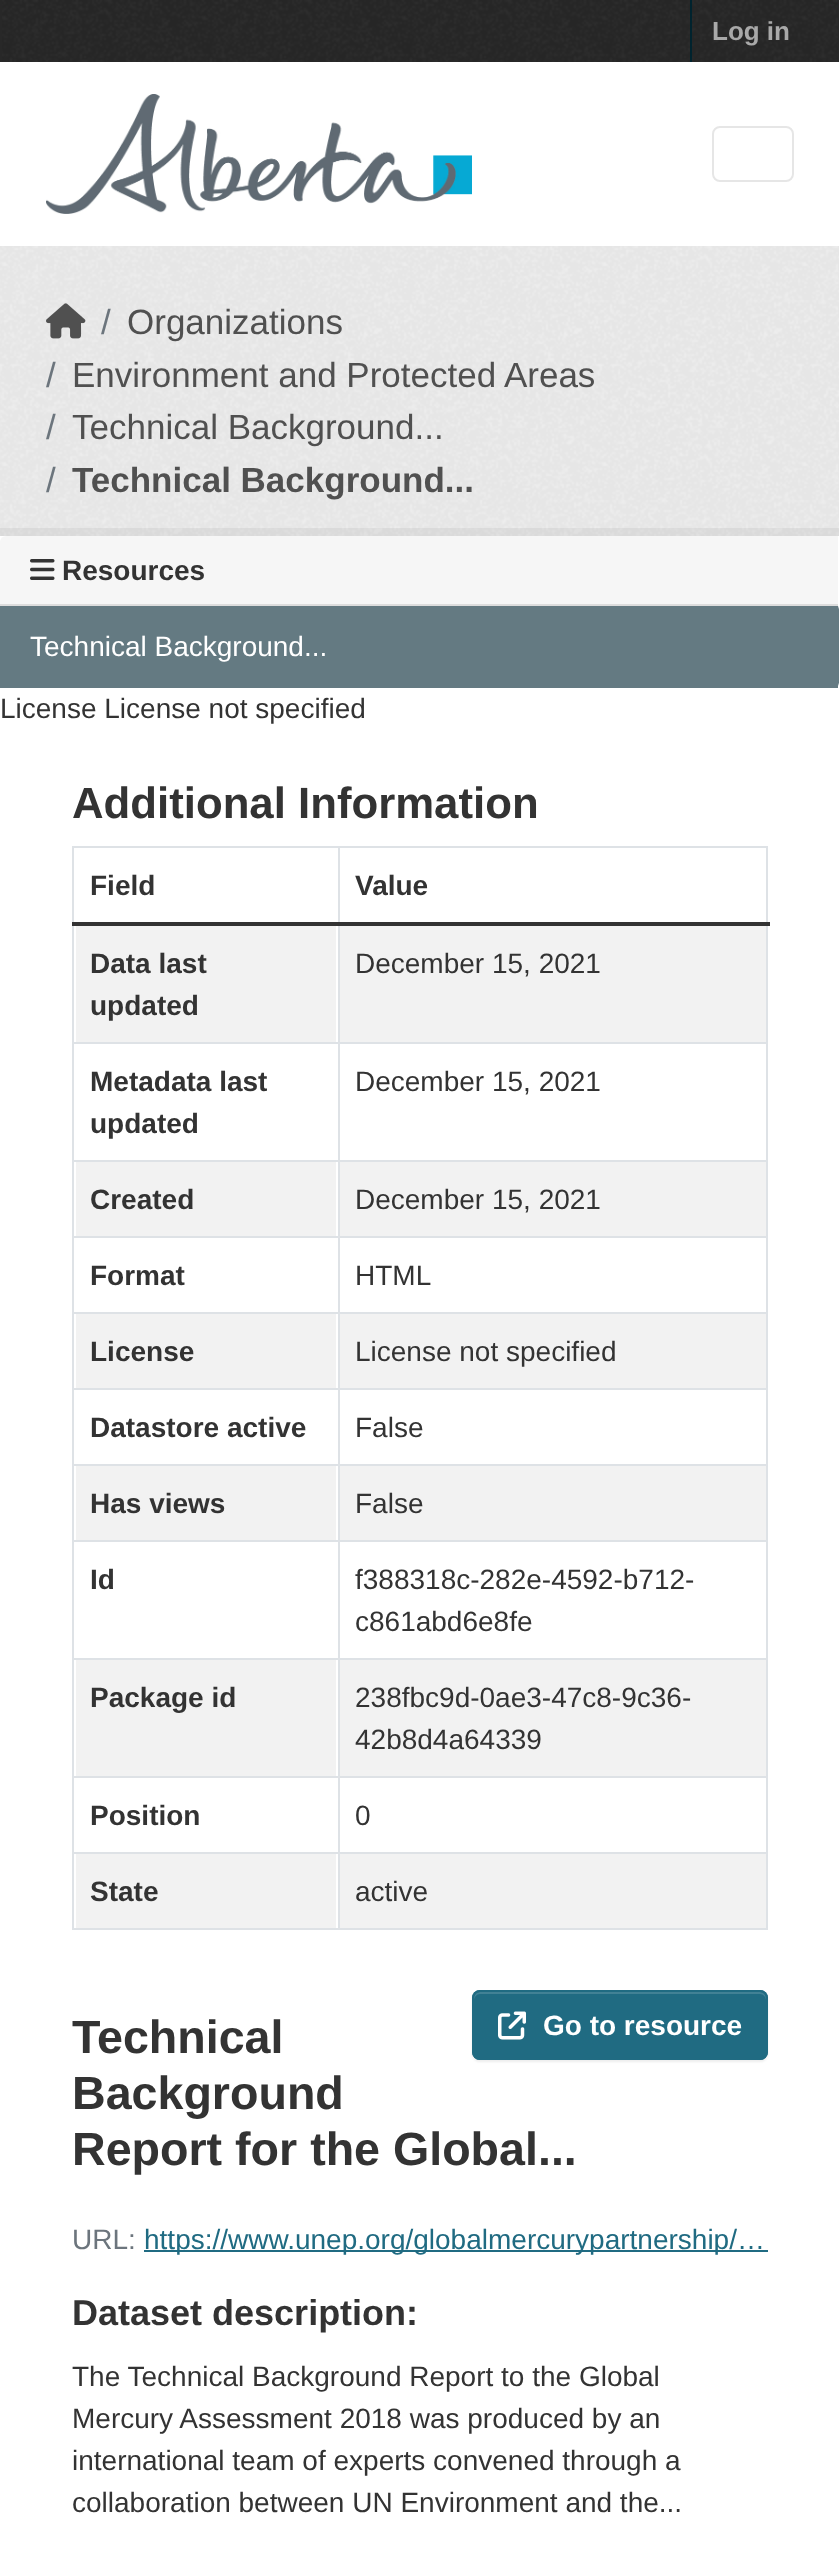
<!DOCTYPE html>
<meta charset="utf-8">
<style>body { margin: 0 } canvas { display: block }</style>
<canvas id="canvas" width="839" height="2576"></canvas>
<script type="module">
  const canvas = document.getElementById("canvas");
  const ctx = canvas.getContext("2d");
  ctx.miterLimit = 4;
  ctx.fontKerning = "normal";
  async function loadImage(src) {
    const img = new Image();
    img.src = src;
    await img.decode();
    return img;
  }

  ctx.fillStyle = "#282828";
  ctx.fillRect(0, 0, 839, 2576);
  ctx.drawImage(await loadImage("img1.png"), 2, 0, 836, 62);
  ctx.fillStyle = "#00232e";
  ctx.fillRect(690, 0, 2, 62);
  ctx.font = "bold 26px Liberation Sans";
  ctx.fillStyle = "#a9a9a9";
  ctx.fillText("Log in", 712, 40);
  ctx.fillStyle = "#ffffff";
  ctx.fillRect(0, 62, 839, 184);
  ctx.drawImage(await loadImage("img2.png"), 46, 94, 426, 120);
  ctx.beginPath();
  ctx.roundRect(713, 127, 80, 54, 7);
  ctx.strokeStyle = "#e6e6e6";
  ctx.lineWidth = 2;
  ctx.stroke();
  ctx.fillStyle = "#eeeeee";
  ctx.fillRect(0, 246, 839, 290);
  ctx.drawImage(await loadImage("img3.png"), 0, 246, 839, 290);
  ctx.drawImage(await loadImage("img4.png"), 46, 303, 40, 36);
  ctx.font = "35px Liberation Sans";
  ctx.fillStyle = "#6c757d";
  ctx.fillText("/", 101, 334);
  ctx.fillStyle = "#505050";
  ctx.fillText("Organizations", 127, 334);
  ctx.fillStyle = "#6c757d";
  ctx.fillText("/", 46, 387);
  ctx.fillStyle = "#505050";
  ctx.fillText("Environment and Protected Areas", 72, 387);
  ctx.fillStyle = "#6c757d";
  ctx.fillText("/", 46, 439);
  ctx.fillStyle = "#505050";
  ctx.fillText("Technical Background...", 72, 439);
  ctx.fillStyle = "#6c757d";
  ctx.fillText("/", 46, 492);
  ctx.font = "bold 35px Liberation Sans";
  ctx.fillStyle = "#505050";
  ctx.fillText("Technical Background...", 72, 492);
  ctx.strokeStyle = "rgba(0, 0, 0, 0.05)";
  ctx.lineWidth = 8;
  ctx.strokeRect(-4, 532, 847, 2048);
  ctx.fillStyle = "#ffffff";
  ctx.fillRect(0, 536, 839, 2040);
  ctx.fillStyle = "#f6f6f6";
  ctx.beginPath();
  ctx.roundRect(0, 536, 838, 70, [6, 0, 0, 0]);
  ctx.fill();
  ctx.fillStyle = "#dddddd";
  ctx.fillRect(0, 604, 838, 2);
  ctx.drawImage(await loadImage("img5.png"), 30, 559, 25, 21);
  ctx.font = "bold 28px Liberation Sans";
  ctx.fillStyle = "#333333";
  ctx.fillText("Resources", 62, 580);
  ctx.fillStyle = "#647a82";
  ctx.fillRect(0, 606, 838, 82);
  ctx.font = "28px Liberation Sans";
  ctx.fillStyle = "#ffffff";
  ctx.fillText("Technical Background...", 30, 656);
  ctx.fillStyle = "#647a82";
  ctx.beginPath();
  ctx.moveTo(838, 686);
  ctx.lineTo(838, 606);
  ctx.lineTo(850, 646);
  ctx.closePath();
  ctx.fill();
  ctx.fillStyle = "#333333";
  ctx.fillText("License License not specified", 0, 718);
  ctx.font = "bold 43.75px Liberation Sans";
  ctx.fillText("Additional Information", 72, 818);
  ctx.fillStyle = "#dee2e6";
  ctx.fillRect(72, 846, 696, 2);
  ctx.font = "bold 28px Liberation Sans";
  ctx.fillStyle = "#333333";
  ctx.fillText("Field", 90, 895);
  ctx.fillText("Value", 355, 895);
  ctx.fillStyle = "#dee2e6";
  ctx.fillRect(72, 1042, 696, 2);
  ctx.fillRect(72, 1160, 696, 2);
  ctx.fillRect(72, 1236, 696, 2);
  ctx.fillRect(72, 1312, 696, 2);
  ctx.fillRect(72, 1388, 696, 2);
  ctx.fillRect(72, 1464, 696, 2);
  ctx.fillRect(72, 1540, 696, 2);
  ctx.fillRect(72, 1658, 696, 2);
  ctx.fillRect(72, 1776, 696, 2);
  ctx.fillRect(72, 1852, 696, 2);
  ctx.fillRect(72, 1928, 696, 2);
  ctx.fillRect(72, 846, 2, 1084);
  ctx.fillRect(766, 846, 2, 1084);
  ctx.fillRect(338, 846, 2, 1084);
  ctx.fillStyle = "#333333";
  ctx.fillRect(72, 922, 698, 4);
  ctx.fillStyle = "#f2f2f2";
  ctx.fillRect(76, 926, 260, 116);
  ctx.fillStyle = "#333333";
  ctx.fillText("Data last", 90, 973);
  ctx.fillText("updated", 90, 1015);
  ctx.fillStyle = "#f2f2f2";
  ctx.fillRect(340, 926, 426, 116);
  ctx.font = "28px Liberation Sans";
  ctx.fillStyle = "#333333";
  ctx.fillText("December 15, 2021", 355, 973);
  ctx.font = "bold 28px Liberation Sans";
  ctx.fillText("Metadata last", 90, 1091);
  ctx.fillText("updated", 90, 1133);
  ctx.font = "28px Liberation Sans";
  ctx.fillText("December 15, 2021", 355, 1091);
  ctx.fillStyle = "#f2f2f2";
  ctx.fillRect(76, 1162, 260, 74);
  ctx.font = "bold 28px Liberation Sans";
  ctx.fillStyle = "#333333";
  ctx.fillText("Created", 90, 1209);
  ctx.fillStyle = "#f2f2f2";
  ctx.fillRect(340, 1162, 426, 74);
  ctx.font = "28px Liberation Sans";
  ctx.fillStyle = "#333333";
  ctx.fillText("December 15, 2021", 355, 1209);
  ctx.font = "bold 28px Liberation Sans";
  ctx.fillText("Format", 90, 1285);
  ctx.font = "28px Liberation Sans";
  ctx.fillText("HTML", 355, 1285);
  ctx.fillStyle = "#f2f2f2";
  ctx.fillRect(76, 1314, 260, 74);
  ctx.font = "bold 28px Liberation Sans";
  ctx.fillStyle = "#333333";
  ctx.fillText("License", 90, 1361);
  ctx.fillStyle = "#f2f2f2";
  ctx.fillRect(340, 1314, 426, 74);
  ctx.font = "28px Liberation Sans";
  ctx.fillStyle = "#333333";
  ctx.fillText("License not specified", 355, 1361);
  ctx.font = "bold 28px Liberation Sans";
  ctx.fillText("Datastore active", 90, 1437);
  ctx.font = "28px Liberation Sans";
  ctx.fillText("False", 355, 1437);
  ctx.fillStyle = "#f2f2f2";
  ctx.fillRect(76, 1466, 260, 74);
  ctx.font = "bold 28px Liberation Sans";
  ctx.fillStyle = "#333333";
  ctx.fillText("Has views", 90, 1513);
  ctx.fillStyle = "#f2f2f2";
  ctx.fillRect(340, 1466, 426, 74);
  ctx.font = "28px Liberation Sans";
  ctx.fillStyle = "#333333";
  ctx.fillText("False", 355, 1513);
  ctx.font = "bold 28px Liberation Sans";
  ctx.fillText("Id", 90, 1589);
  ctx.font = "28px Liberation Sans";
  ctx.fillText("f388318c-282e-4592-b712-", 355, 1589);
  ctx.fillText("c861abd6e8fe", 355, 1631);
  ctx.fillStyle = "#f2f2f2";
  ctx.fillRect(76, 1660, 260, 116);
  ctx.font = "bold 28px Liberation Sans";
  ctx.fillStyle = "#333333";
  ctx.fillText("Package id", 90, 1707);
  ctx.fillStyle = "#f2f2f2";
  ctx.fillRect(340, 1660, 426, 116);
  ctx.font = "28px Liberation Sans";
  ctx.fillStyle = "#333333";
  ctx.fillText("238fbc9d-0ae3-47c8-9c36-", 355, 1707);
  ctx.fillText("42b8d4a64339", 355, 1749);
  ctx.font = "bold 28px Liberation Sans";
  ctx.fillText("Position", 90, 1825);
  ctx.font = "28px Liberation Sans";
  ctx.fillText("0", 355, 1825);
  ctx.fillStyle = "#f2f2f2";
  ctx.fillRect(76, 1854, 260, 74);
  ctx.font = "bold 28px Liberation Sans";
  ctx.fillStyle = "#333333";
  ctx.fillText("State", 90, 1901);
  ctx.fillStyle = "#f2f2f2";
  ctx.fillRect(340, 1854, 426, 74);
  ctx.font = "28px Liberation Sans";
  ctx.fillStyle = "#333333";
  ctx.fillText("active", 355, 1901);
  ctx.font = "bold 46.6px Liberation Sans";
  ctx.fillText("Technical", 72, 2053);
  ctx.fillText("Background", 72, 2109);
  ctx.fillText("Report for the Global...", 72, 2165);
  ctx.fillStyle = "rgba(0, 0, 0, 0.07)";
  ctx.filter = "blur(1px)";
  ctx.beginPath();
  ctx.roundRect(472, 1992, 296, 70, 8);
  ctx.fill();
  ctx.filter = "none";
  ctx.fillStyle = "#206b82";
  ctx.beginPath();
  ctx.roundRect(472, 1990, 296, 70, 8);
  ctx.fill();
  ctx.fillStyle = "#418195";
  ctx.beginPath();
  ctx.moveTo(480, 1994);
  ctx.lineTo(760, 1994);
  ctx.bezierCurveTo(763, 1994, 766, 1997, 766, 2000);
  ctx.lineTo(766, 1998);
  ctx.bezierCurveTo(766, 1995, 763, 1992, 760, 1992);
  ctx.lineTo(480, 1992);
  ctx.bezierCurveTo(477, 1992, 474, 1995, 474, 1998);
  ctx.lineTo(474, 2000);
  ctx.bezierCurveTo(474, 1997, 477, 1994, 480, 1994);
  ctx.closePath();
  ctx.fill();
  ctx.beginPath();
  ctx.roundRect(473, 1991, 294, 68, 7);
  ctx.strokeStyle = "#206b82";
  ctx.lineWidth = 2;
  ctx.stroke();
  ctx.drawImage(await loadImage("img6.png"), 498, 2011, 28, 29);
  ctx.font = "bold 28px Liberation Sans";
  ctx.fillStyle = "#ffffff";
  ctx.fillText("Go to resource", 543, 2035);
  ctx.font = "28px Liberation Sans";
  ctx.fillStyle = "#6c757d";
  ctx.fillText("URL:", 72, 2249);
  ctx.fillStyle = "#206b82";
  ctx.fillRect(144, 2250, 624, 2);
  ctx.fillText("https://www.unep.org/globalmercurypartnership/…", 144, 2249);
  ctx.font = "bold 36px Liberation Sans";
  ctx.fillStyle = "#333333";
  ctx.fillText("Dataset description:", 72, 2325);
  ctx.font = "28px Liberation Sans";
  ctx.fillText("The Technical Background Report to the Global", 72, 2386);
  ctx.fillText("Mercury Assessment 2018 was produced by an", 72, 2428);
  ctx.fillText("international team of experts convened through a", 72, 2470);
  ctx.fillText("collaboration between UN Environment and the...", 72, 2512);
</script>
